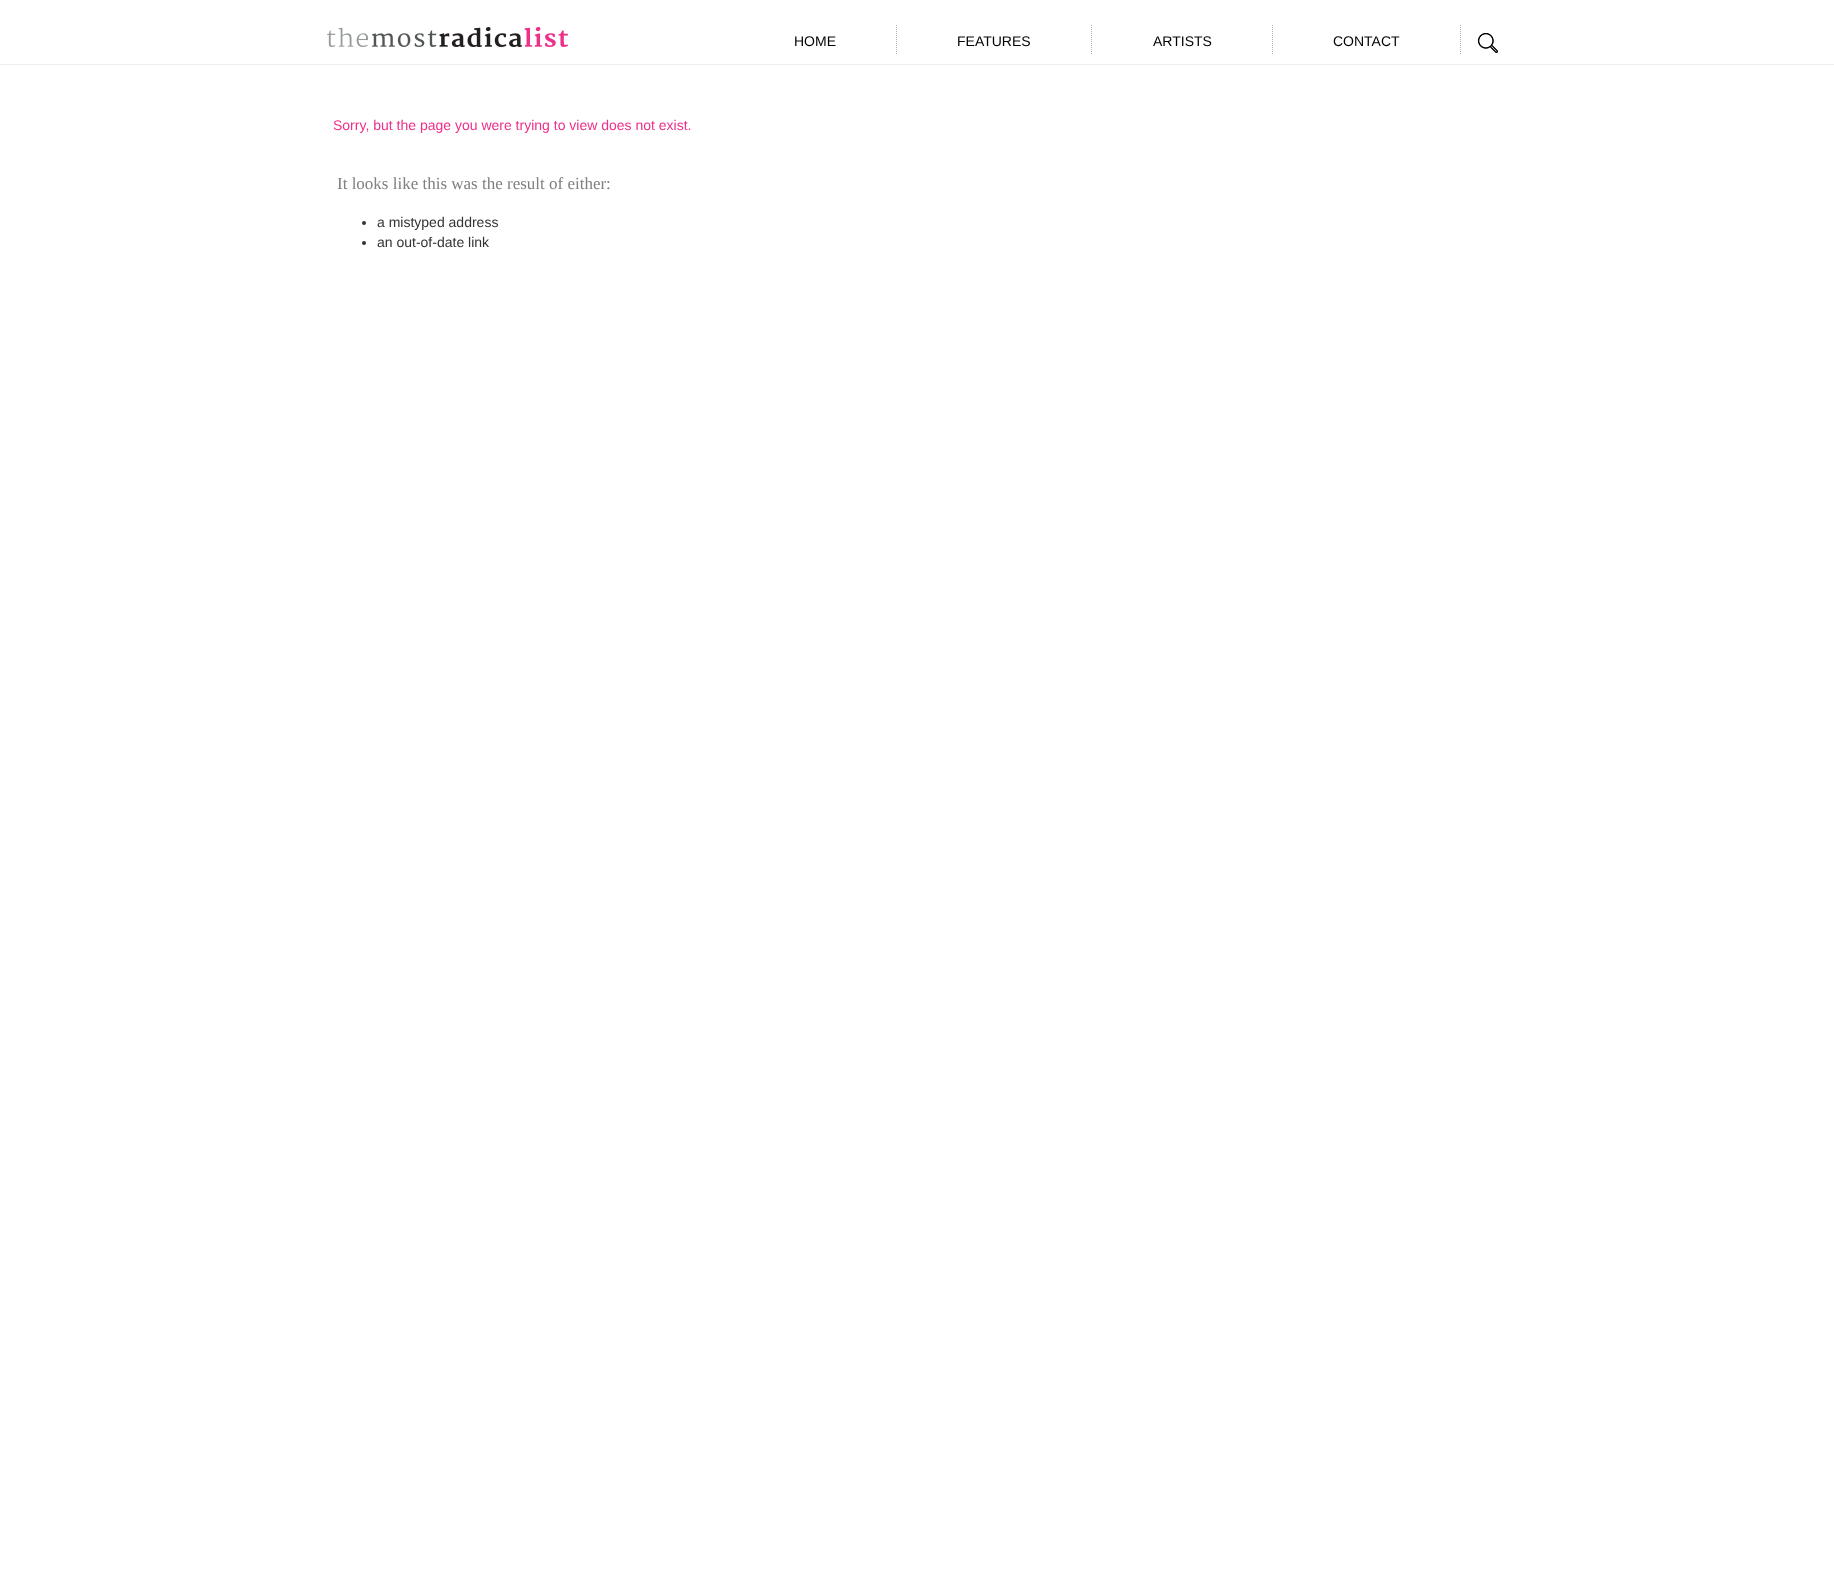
<!DOCTYPE html>
<meta charset="utf-8">
<style>body { margin: 0 } canvas { display: block }</style>
<canvas id="canvas" width="1834" height="1590"></canvas>
<script type="module">
  const canvas = document.getElementById("canvas");
  const ctx = canvas.getContext("2d");
  ctx.miterLimit = 4;
  ctx.fontKerning = "normal";
  async function loadImage(src) {
    const img = new Image();
    img.src = src;
    await img.decode();
    return img;
  }

  ctx.fillStyle = "#ffffff";
  ctx.fillRect(0, 0, 1834, 1590);
  ctx.fillStyle = "#eeeeee";
  ctx.fillRect(0, 64, 1834, 1);
  ctx.drawImage(await loadImage("img1.png"), 327, 27, 241, 20);
  ctx.font = "14px Liberation Sans";
  ctx.fillStyle = "#000000";
  ctx.fillText("HOME", 794, 46);
  ctx.beginPath();
  ctx.moveTo(896.5, 25);
  ctx.lineTo(896.5, 55);
  ctx.strokeStyle = "#b2b2b2";
  ctx.setLineDash([1, 1]);
  ctx.stroke();
  ctx.fillText("FEATURES", 957, 46);
  ctx.beginPath();
  ctx.moveTo(1091.5, 25);
  ctx.lineTo(1091.5, 55);
  ctx.stroke();
  ctx.fillText("ARTISTS", 1153, 46);
  ctx.beginPath();
  ctx.moveTo(1272.5, 25);
  ctx.lineTo(1272.5, 55);
  ctx.stroke();
  ctx.fillText("CONTACT", 1333, 46);
  ctx.beginPath();
  ctx.moveTo(1460.5, 25);
  ctx.lineTo(1460.5, 55);
  ctx.stroke();
  ctx.drawImage(await loadImage("img2.png"), 1477, 33, 22, 20);
  ctx.fillStyle = "#ed308a";
  ctx.fillText("Sorry, but the page you were trying to view does not exist.", 333, 130);
  ctx.font = "17px Liberation Serif";
  ctx.fillStyle = "#7f7f7f";
  ctx.fillText("It looks like this was the result of either:", 337, 189);
  ctx.fillStyle = "#333333";
  ctx.beginPath();
  ctx.arc(364, 223, 2, 0, Math.PI * 2);
  ctx.fill();
  ctx.font = "14px Liberation Sans";
  ctx.fillText("a mistyped address", 377, 227);
  ctx.beginPath();
  ctx.arc(364, 243, 2, 0, Math.PI * 2);
  ctx.fill();
  ctx.fillText("an out-of-date link", 377, 247);
</script>
